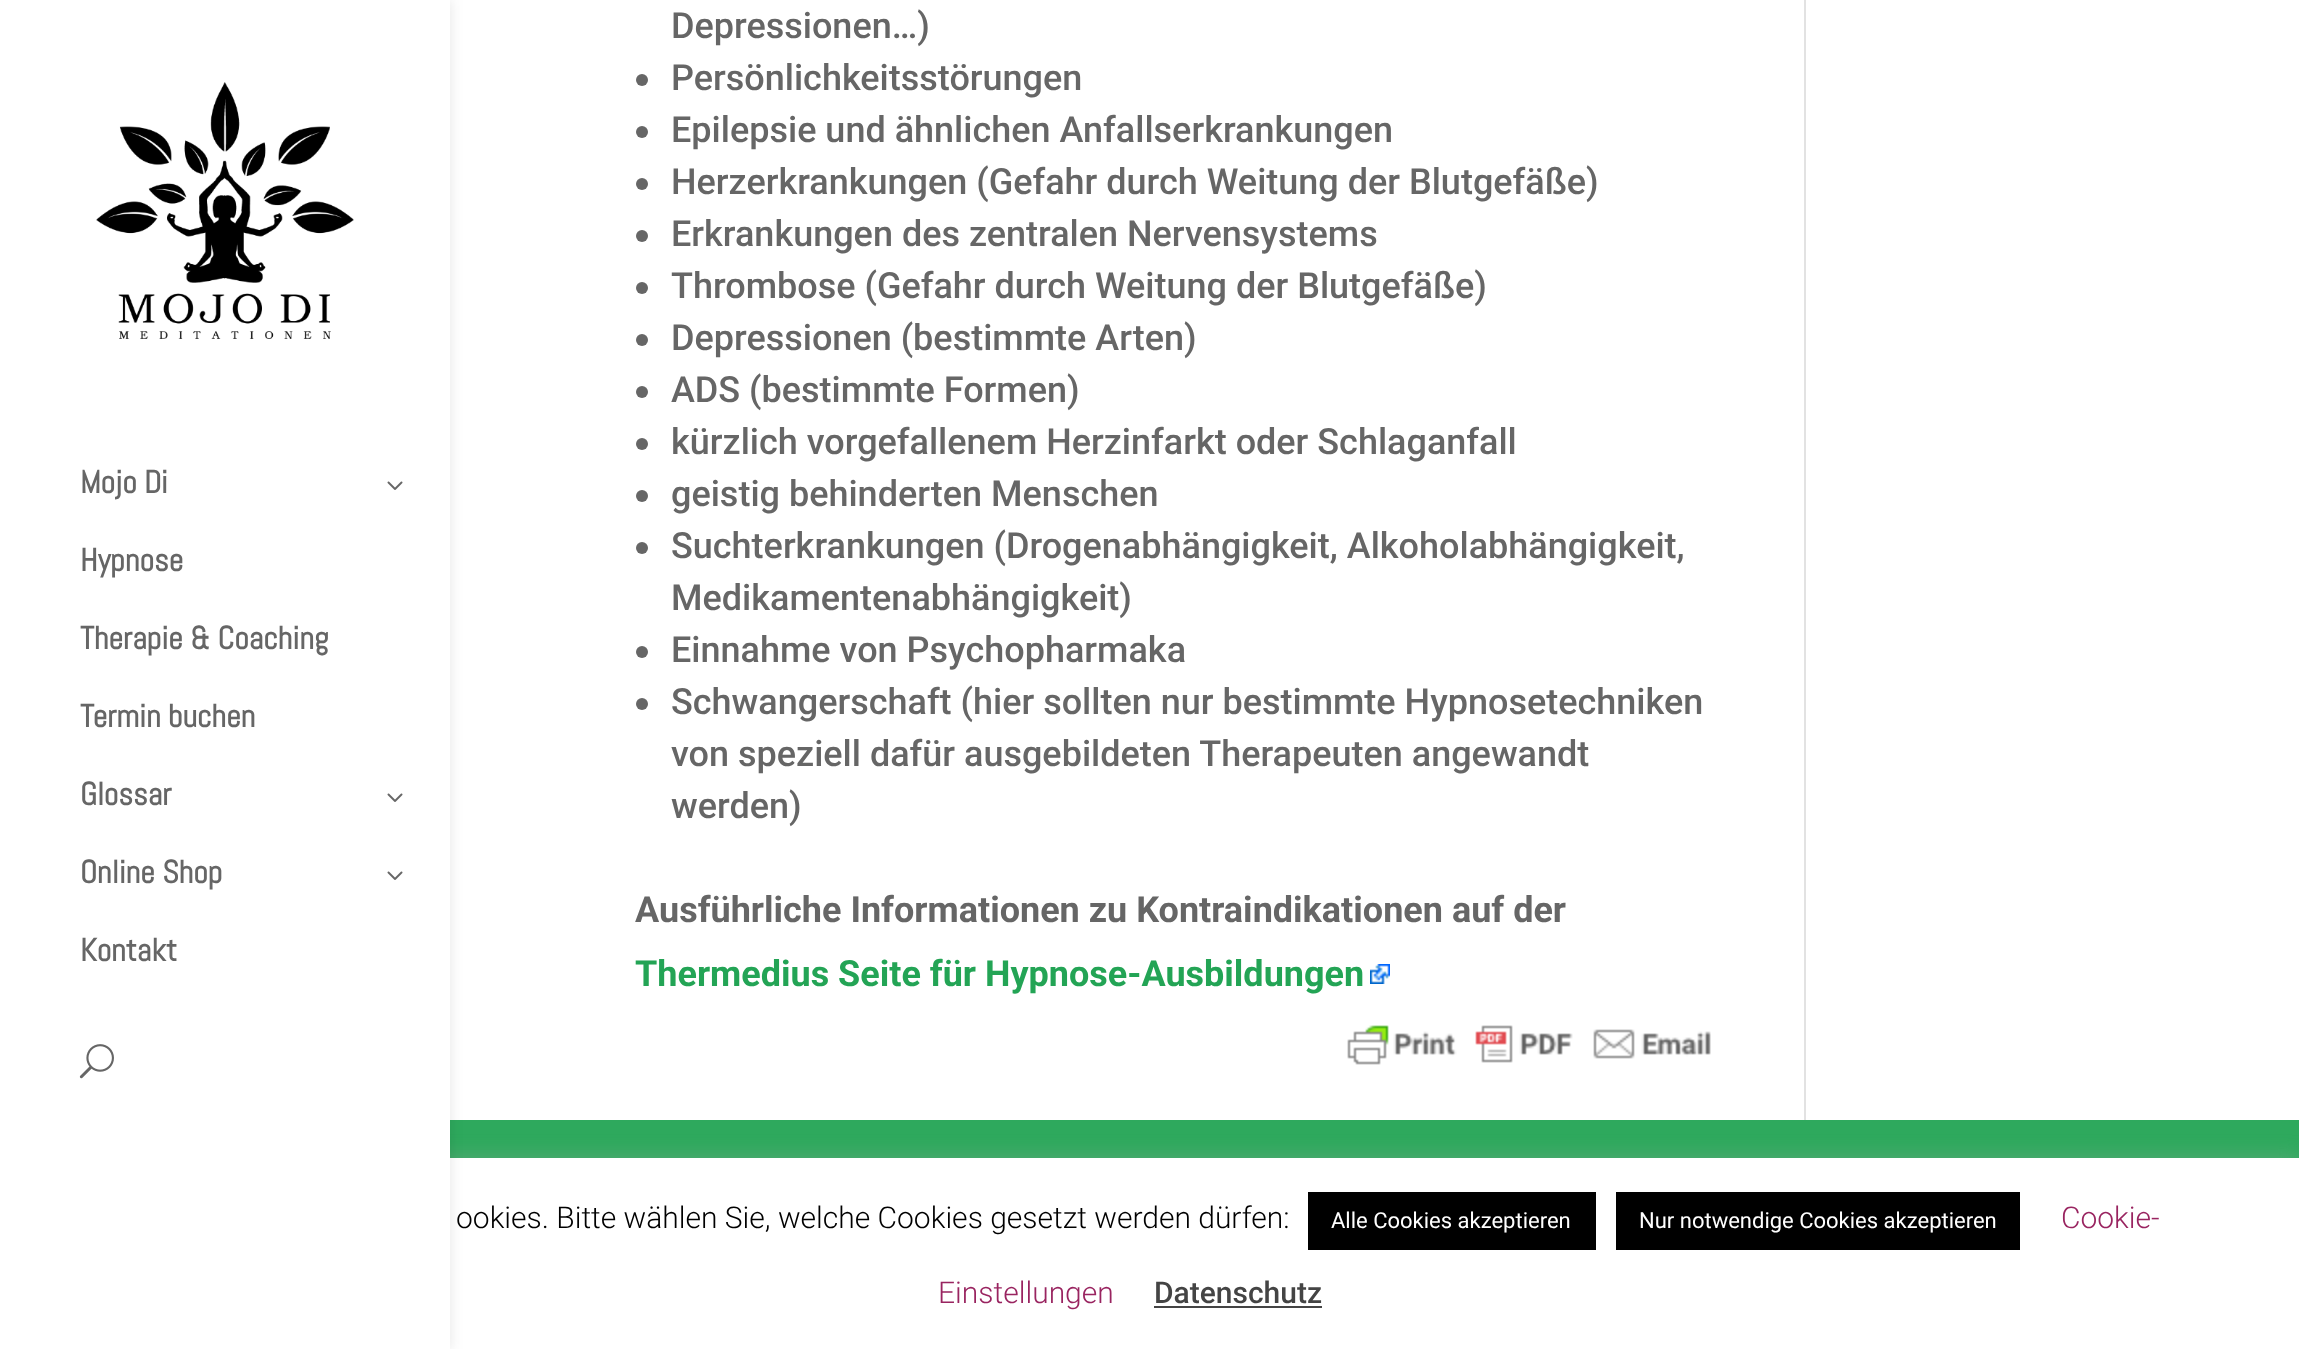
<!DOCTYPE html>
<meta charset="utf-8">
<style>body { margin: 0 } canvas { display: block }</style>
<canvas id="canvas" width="2299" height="1349"></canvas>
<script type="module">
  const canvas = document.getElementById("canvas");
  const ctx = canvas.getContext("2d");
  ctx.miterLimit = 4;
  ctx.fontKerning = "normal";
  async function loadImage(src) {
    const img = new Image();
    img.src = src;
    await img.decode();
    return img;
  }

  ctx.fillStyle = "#ffffff";
  ctx.fillRect(0, 0, 2299, 1349);
  ctx.fillStyle = "#2ea95d";
  ctx.fillRect(450, 1120, 1849, 38);
  ctx.fillStyle = "rgba(172, 171, 171, 0.3)";
  ctx.filter = "blur(10px)";
  ctx.beginPath();
  ctx.rect(0, 1156, 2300, 192);
  ctx.fill();
  ctx.filter = "none";
  ctx.fillStyle = "#ffffff";
  ctx.fillRect(450, 1158, 1849, 191);
  ctx.fillStyle = "rgba(0, 0, 0, 0.1)";
  ctx.filter = "blur(7px)";
  ctx.beginPath();
  ctx.rect(0, 0, 450, 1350);
  ctx.fill();
  ctx.filter = "none";
  ctx.fillStyle = "#ffffff";
  ctx.fillRect(0, 0, 450, 1349);
  ctx.drawImage(await loadImage("img1.png"), 96, 82, 258, 257);
  ctx.font = "bold 32px Abel";
  ctx.fillStyle = "#666666";
  ctx.fillText("Mojo Di", 80, 493);
  ctx.drawImage(await loadImage("img2.png"), 387, 481, 16, 9);
  ctx.fillText("Hypnose", 80, 571);
  ctx.fillText("Therapie & Coaching", 80, 649);
  ctx.fillText("Termin buchen", 80, 727);
  ctx.fillText("Glossar", 80, 805);
  ctx.drawImage(await loadImage("img2.png"), 387, 793, 16, 9);
  ctx.fillText("Online Shop", 80, 883);
  ctx.drawImage(await loadImage("img2.png"), 387, 871, 16, 9);
  ctx.fillText("Kontakt", 80, 961);
  ctx.drawImage(await loadImage("img3.png"), 79, 1044, 35, 35);
  ctx.font = "500 36px Roboto";
  ctx.fillText("Depressionen…)", 671, 38);
  ctx.beginPath();
  ctx.arc(642, 80, 6, 0, Math.PI * 2);
  ctx.fill();
  ctx.fillText("Persönlichkeitsstörungen", 671, 90);
  ctx.beginPath();
  ctx.arc(642, 132, 6, 0, Math.PI * 2);
  ctx.fill();
  ctx.fillText("Epilepsie und ähnlichen Anfallserkrankungen", 671, 142);
  ctx.beginPath();
  ctx.arc(642, 184, 6, 0, Math.PI * 2);
  ctx.fill();
  ctx.fillText("Herzerkrankungen (Gefahr durch Weitung der Blutgefäße)", 671, 194);
  ctx.beginPath();
  ctx.arc(642, 236, 6, 0, Math.PI * 2);
  ctx.fill();
  ctx.fillText("Erkrankungen des zentralen Nervensystems", 671, 246);
  ctx.beginPath();
  ctx.arc(642, 288, 6, 0, Math.PI * 2);
  ctx.fill();
  ctx.fillText("Thrombose (Gefahr durch Weitung der Blutgefäße)", 671, 298);
  ctx.beginPath();
  ctx.arc(642, 340, 6, 0, Math.PI * 2);
  ctx.fill();
  ctx.fillText("Depressionen (bestimmte Arten)", 671, 350);
  ctx.beginPath();
  ctx.arc(642, 392, 6, 0, Math.PI * 2);
  ctx.fill();
  ctx.fillText("ADS (bestimmte Formen)", 671, 402);
  ctx.beginPath();
  ctx.arc(642, 444, 6, 0, Math.PI * 2);
  ctx.fill();
  ctx.fillText("kürzlich vorgefallenem Herzinfarkt oder Schlaganfall", 671, 454);
  ctx.beginPath();
  ctx.arc(642, 496, 6, 0, Math.PI * 2);
  ctx.fill();
  ctx.fillText("geistig behinderten Menschen", 671, 506);
  ctx.beginPath();
  ctx.arc(642, 548, 6, 0, Math.PI * 2);
  ctx.fill();
  ctx.fillText("Suchterkrankungen (Drogenabhängigkeit, Alkoholabhängigkeit,", 671, 558);
  ctx.fillText("Medikamentenabhängigkeit)", 671, 610);
  ctx.beginPath();
  ctx.arc(642, 652, 6, 0, Math.PI * 2);
  ctx.fill();
  ctx.fillText("Einnahme von Psychopharmaka", 671, 662);
  ctx.beginPath();
  ctx.arc(642, 704, 6, 0, Math.PI * 2);
  ctx.fill();
  ctx.fillText("Schwangerschaft (hier sollten nur bestimmte Hypnosetechniken", 671, 714);
  ctx.fillText("von speziell dafür ausgebildeten Therapeuten angewandt", 671, 766);
  ctx.fillText("werden)", 671, 818);
  ctx.font = "bold 36px Roboto";
  ctx.fillText("Ausführliche Informationen zu Kontraindikationen auf der", 635, 922);
  ctx.fillStyle = "#23a455";
  ctx.fillText("Thermedius Seite für Hypnose-Ausbildungen", 635, 986);
  ctx.drawImage(await loadImage("img4.png"), 1370, 964, 20, 20);
  ctx.drawImage(await loadImage("img5.png"), 1347, 1025, 364, 40);
  ctx.fillStyle = "#e2e2e2";
  ctx.fillRect(1804, 0, 2, 1120);
  ctx.font = "300 30px Roboto";
  ctx.fillStyle = "#000000";
  ctx.fillText("ookies. Bitte wählen Sie, welche Cookies gesetzt werden dürfen:", 456, 1228);
  ctx.fillRect(1308, 1192, 288, 58);
  ctx.font = "22px Roboto";
  ctx.fillStyle = "#ffffff";
  ctx.fillText("Alle Cookies akzeptieren", 1331, 1228);
  ctx.fillStyle = "#000000";
  ctx.fillRect(1616, 1192, 404, 58);
  ctx.fillStyle = "#ffffff";
  ctx.fillText("Nur notwendige Cookies akzeptieren", 1639, 1228);
  ctx.font = "300 30px Roboto";
  ctx.fillStyle = "#992460";
  ctx.fillText("Cookie-", 2061, 1228);
  ctx.fillText("Einstellungen", 938, 1303);
  ctx.font = "500 30px Roboto";
  ctx.fillStyle = "#444444";
  ctx.fillText("Datenschutz", 1154, 1303);
  ctx.fillRect(1154, 1306, 168, 2);
</script>
